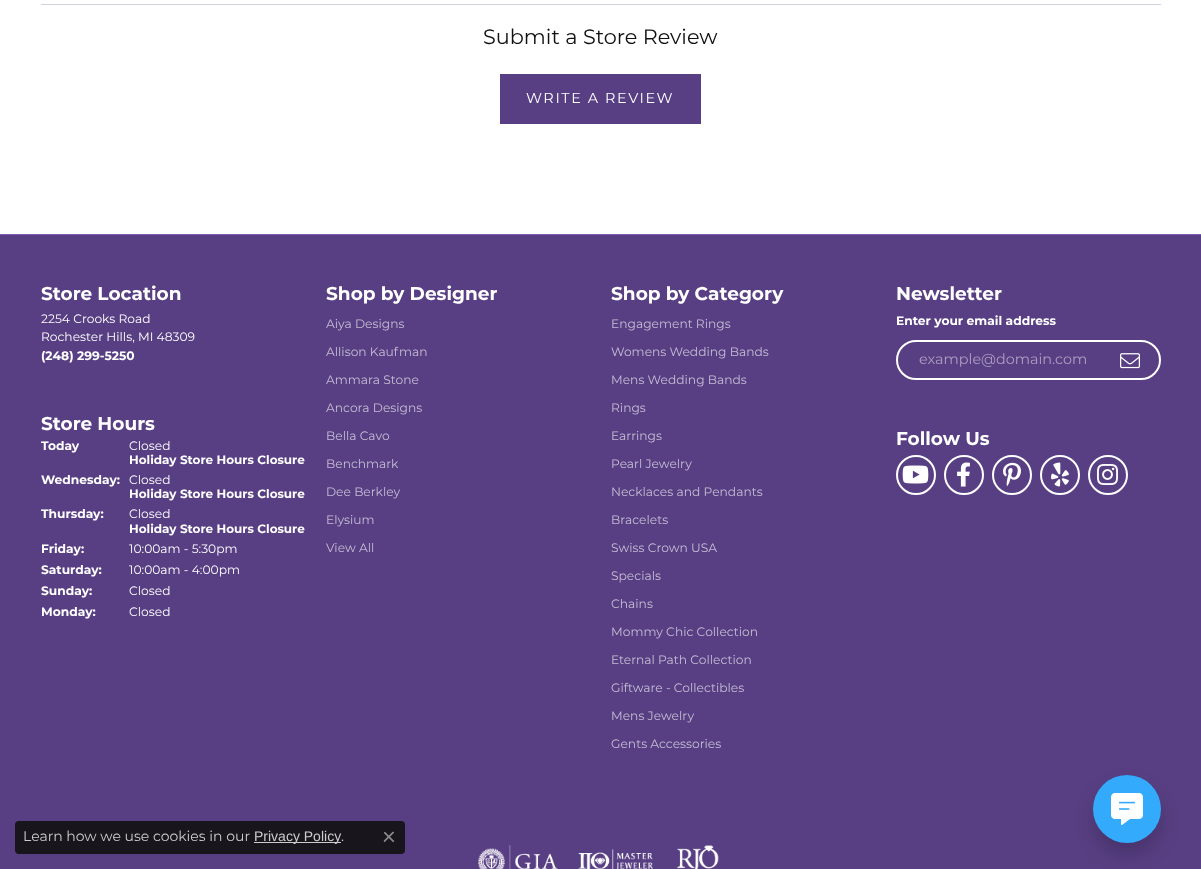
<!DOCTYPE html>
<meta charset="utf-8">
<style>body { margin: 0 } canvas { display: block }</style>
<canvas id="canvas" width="1201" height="869"></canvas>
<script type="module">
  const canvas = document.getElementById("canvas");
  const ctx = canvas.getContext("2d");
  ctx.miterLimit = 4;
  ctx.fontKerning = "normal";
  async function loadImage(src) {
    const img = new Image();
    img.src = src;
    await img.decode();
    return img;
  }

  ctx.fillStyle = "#ffffff";
  ctx.fillRect(0, 0, 1201, 869);
  ctx.fillStyle = "#d5cfe0";
  ctx.fillRect(41, 4, 1120, 1);
  ctx.font = "20.75px Montserrat";
  ctx.fillStyle = "#111111";
  ctx.fillText("Submit a Store Review", 483, 44);
  ctx.fillStyle = "#583f83";
  ctx.fillRect(500, 74, 201, 50);
  ctx.letterSpacing = "1.6px";
  ctx.font = "14.4px Montserrat";
  ctx.fillStyle = "#ffffff";
  ctx.fillText("WRITE A REVIEW", 526, 103);
  ctx.fillStyle = "#583f83";
  ctx.fillRect(0, 235, 1201, 634);
  ctx.fillStyle = "#7c5db1";
  ctx.fillRect(0, 234, 1201, 1);
  ctx.letterSpacing = "0px";
  ctx.font = "bold 18.5px Montserrat";
  ctx.fillStyle = "#ffffff";
  ctx.fillText("Store Location", 41, 300);
  ctx.font = "12.25px Montserrat";
  ctx.fillText("2254 Crooks Road", 41, 323);
  ctx.fillText("Rochester Hills, MI 48309", 41, 341);
  ctx.font = "bold 12.25px Montserrat";
  ctx.fillText("(248) 299-5250", 41, 360);
  ctx.font = "bold 18.5px Montserrat";
  ctx.fillText("Store Hours", 41, 430);
  ctx.font = "bold 12.25px Montserrat";
  ctx.fillText("Today", 41, 450);
  ctx.font = "12.25px Montserrat";
  ctx.fillText("Closed", 129, 450);
  ctx.font = "bold 12px Montserrat";
  ctx.fillText("Holiday Store Hours Closure", 129, 464);
  ctx.font = "bold 12.25px Montserrat";
  ctx.fillText("Wednesday:", 41, 484);
  ctx.font = "12.25px Montserrat";
  ctx.fillText("Closed", 129, 484);
  ctx.font = "bold 12px Montserrat";
  ctx.fillText("Holiday Store Hours Closure", 129, 498);
  ctx.font = "bold 12.25px Montserrat";
  ctx.fillText("Thursday:", 41, 518);
  ctx.font = "12.25px Montserrat";
  ctx.fillText("Closed", 129, 518);
  ctx.font = "bold 12px Montserrat";
  ctx.fillText("Holiday Store Hours Closure", 129, 533);
  ctx.font = "bold 12.25px Montserrat";
  ctx.fillText("Friday:", 41, 553);
  ctx.font = "12.25px Montserrat";
  ctx.fillText("10:00am - 5:30pm", 129, 553);
  ctx.font = "bold 12.25px Montserrat";
  ctx.fillText("Saturday:", 41, 574);
  ctx.font = "12.25px Montserrat";
  ctx.fillText("10:00am - 4:00pm", 129, 574);
  ctx.font = "bold 12.25px Montserrat";
  ctx.fillText("Sunday:", 41, 595);
  ctx.font = "12.25px Montserrat";
  ctx.fillText("Closed", 129, 595);
  ctx.font = "bold 12.25px Montserrat";
  ctx.fillText("Monday:", 41, 616);
  ctx.font = "12.25px Montserrat";
  ctx.fillText("Closed", 129, 616);
  ctx.font = "bold 18.5px Montserrat";
  ctx.fillText("Shop by Designer", 326, 300);
  ctx.font = "12.25px Montserrat";
  ctx.fillStyle = "#c5bcd4";
  ctx.fillText("Aiya Designs", 326, 328);
  ctx.fillText("Allison Kaufman", 326, 356);
  ctx.fillText("Ammara Stone", 326, 384);
  ctx.fillText("Ancora Designs", 326, 412);
  ctx.fillText("Bella Cavo", 326, 440);
  ctx.fillText("Benchmark", 326, 468);
  ctx.fillText("Dee Berkley", 326, 496);
  ctx.fillText("Elysium", 326, 524);
  ctx.fillText("View All", 326, 552);
  ctx.font = "bold 18.5px Montserrat";
  ctx.fillStyle = "#ffffff";
  ctx.fillText("Shop by Category", 611, 300);
  ctx.font = "12.25px Montserrat";
  ctx.fillStyle = "#c5bcd4";
  ctx.fillText("Engagement Rings", 611, 328);
  ctx.fillText("Womens Wedding Bands", 611, 356);
  ctx.fillText("Mens Wedding Bands", 611, 384);
  ctx.fillText("Rings", 611, 412);
  ctx.fillText("Earrings", 611, 440);
  ctx.fillText("Pearl Jewelry", 611, 468);
  ctx.fillText("Necklaces and Pendants", 611, 496);
  ctx.fillText("Bracelets", 611, 524);
  ctx.fillText("Swiss Crown USA", 611, 552);
  ctx.fillText("Specials", 611, 580);
  ctx.fillText("Chains", 611, 608);
  ctx.fillText("Mommy Chic Collection", 611, 636);
  ctx.fillText("Eternal Path Collection", 611, 664);
  ctx.fillText("Giftware - Collectibles", 611, 692);
  ctx.fillText("Mens Jewelry", 611, 720);
  ctx.fillText("Gents Accessories", 611, 748);
  ctx.font = "bold 18.5px Montserrat";
  ctx.fillStyle = "#ffffff";
  ctx.fillText("Newsletter", 896, 300);
  ctx.font = "bold 12.25px Montserrat";
  ctx.fillText("Enter your email address", 896, 325);
  ctx.beginPath();
  ctx.roundRect(897, 341, 263, 38, 19);
  ctx.strokeStyle = "#ffffff";
  ctx.lineWidth = 2;
  ctx.stroke();
  ctx.font = "14.4px Montserrat";
  ctx.fillStyle = "#ac9fc1";
  ctx.fillText("example@domain.com", 919, 364);
  ctx.drawImage(await loadImage("img1.png"), 1120, 353, 20, 16);
  ctx.font = "bold 18.5px Montserrat";
  ctx.fillStyle = "#ffffff";
  ctx.fillText("Follow Us", 896, 445);
  ctx.beginPath();
  ctx.arc(916, 475, 19, 0, Math.PI * 2);
  ctx.stroke();
  ctx.drawImage(await loadImage("img2.png"), 902, 465, 27, 19);
  ctx.beginPath();
  ctx.arc(964, 475, 19, 0, Math.PI * 2);
  ctx.stroke();
  ctx.drawImage(await loadImage("img3.png"), 957, 462, 13, 25);
  ctx.beginPath();
  ctx.arc(1012, 475, 19, 0, Math.PI * 2);
  ctx.stroke();
  ctx.drawImage(await loadImage("img4.png"), 1003, 462, 18, 25);
  ctx.beginPath();
  ctx.arc(1060, 475, 19, 0, Math.PI * 2);
  ctx.stroke();
  ctx.drawImage(await loadImage("img5.png"), 1051, 462, 18, 25);
  ctx.beginPath();
  ctx.arc(1108, 475, 19, 0, Math.PI * 2);
  ctx.stroke();
  ctx.drawImage(await loadImage("img6.png"), 1097, 464, 21, 21);
  ctx.drawImage(await loadImage("img7.png"), 478, 844, 80, 25);
  ctx.drawImage(await loadImage("img8.png"), 578, 849, 75, 20);
  ctx.drawImage(await loadImage("img9.png"), 677, 845, 42, 24);
  ctx.fillStyle = "#18161c";
  ctx.beginPath();
  ctx.roundRect(15, 821, 390, 33, 4);
  ctx.fill();
  ctx.font = "14px Montserrat";
  ctx.fillStyle = "#cccccc";
  ctx.fillText("Learn how we use cookies in our", 23, 841);
  ctx.fillRect(254, 842, 87, 1);
  ctx.font = "14px Liberation Sans";
  ctx.fillText("Privacy Policy", 254, 841);
  ctx.font = "14px Montserrat";
  ctx.fillText(".", 341, 841);
  ctx.drawImage(await loadImage("img10.png"), 383, 831, 12, 12);
  ctx.fillStyle = "rgba(0, 0, 0, 0.18)";
  ctx.filter = "blur(9.5px)";
  ctx.beginPath();
  ctx.roundRect(1093, 787, 68, 68, 34);
  ctx.fill();
  ctx.filter = "none";
  ctx.fillStyle = "#33aafc";
  ctx.beginPath();
  ctx.arc(1127, 809, 34, 0, Math.PI * 2);
  ctx.fill();
  ctx.drawImage(await loadImage("img11.png"), 1111, 793, 32, 32);
</script>
